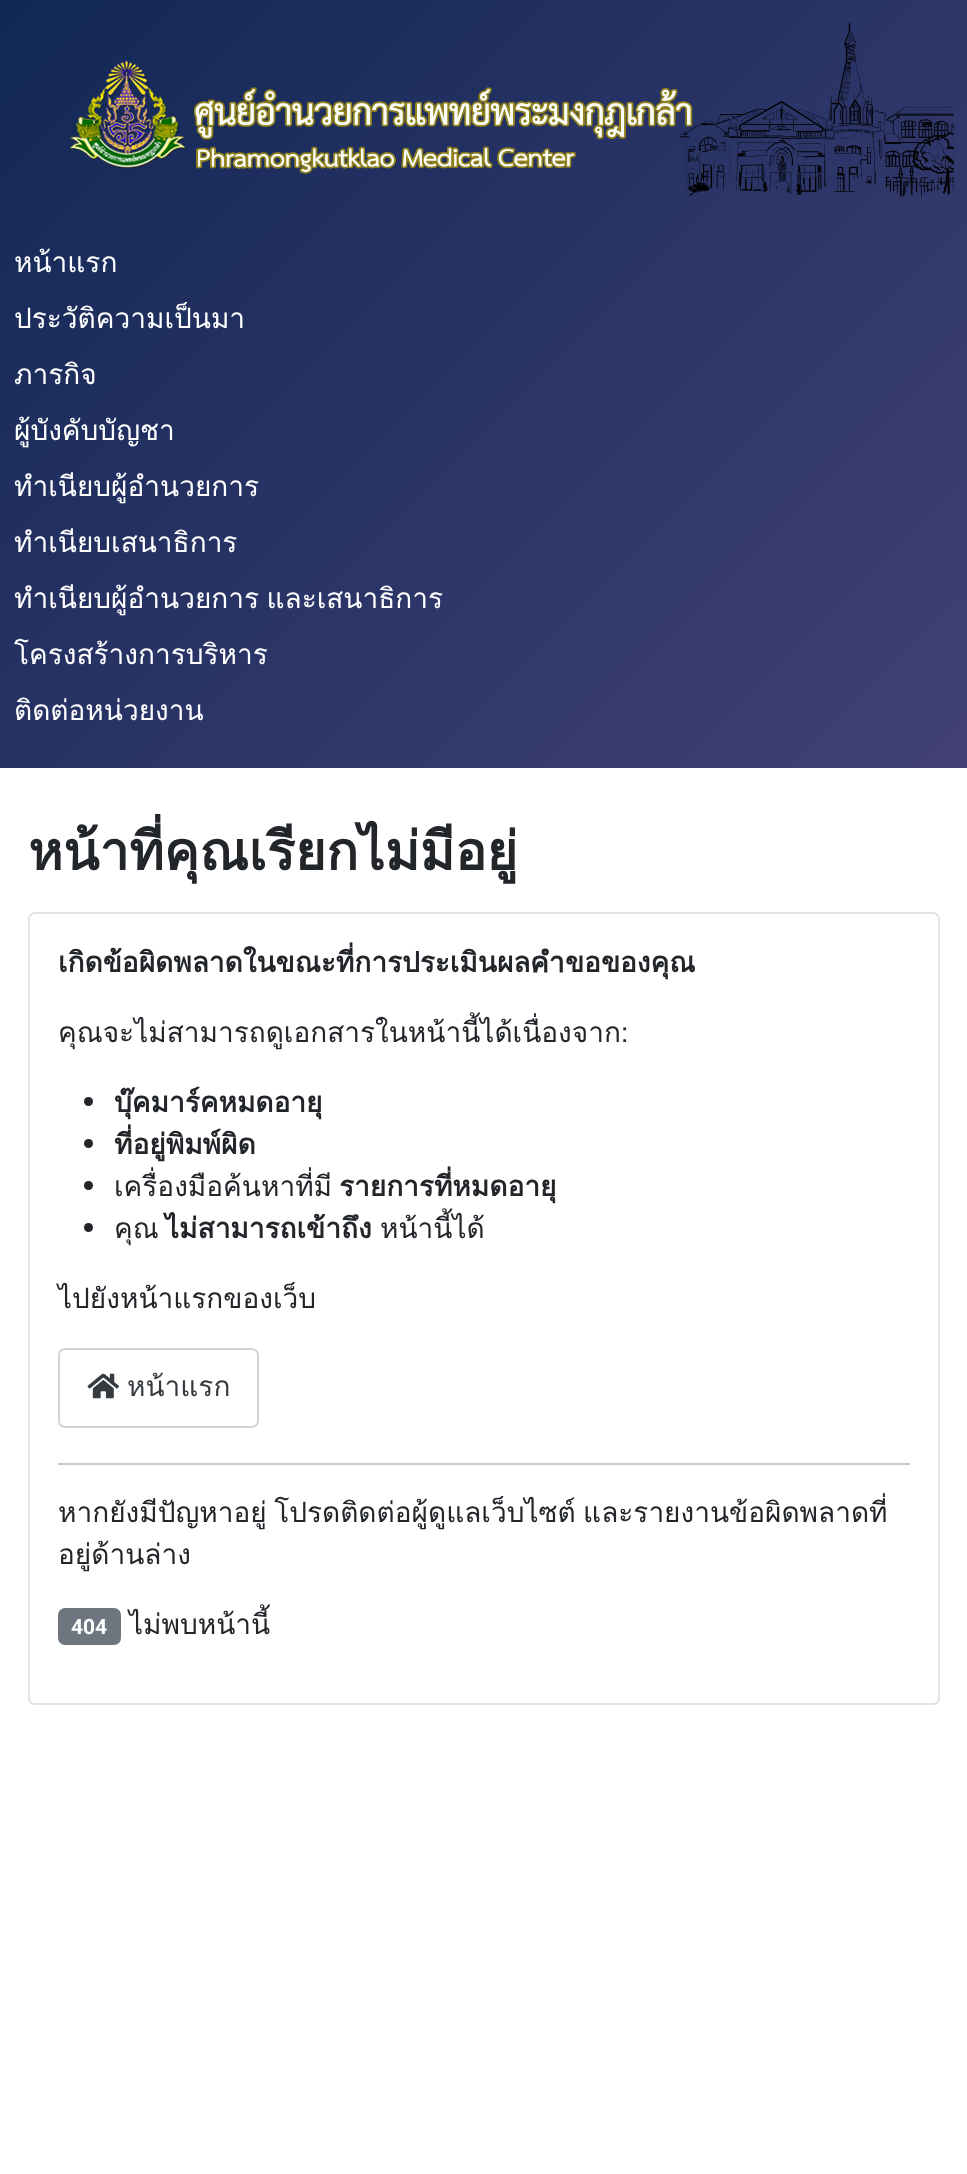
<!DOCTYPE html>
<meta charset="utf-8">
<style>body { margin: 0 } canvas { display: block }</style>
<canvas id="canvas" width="967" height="2174"></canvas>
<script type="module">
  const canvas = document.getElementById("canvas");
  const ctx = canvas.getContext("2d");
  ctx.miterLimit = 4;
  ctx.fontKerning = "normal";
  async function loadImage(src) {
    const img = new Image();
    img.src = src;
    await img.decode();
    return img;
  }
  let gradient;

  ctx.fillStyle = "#ffffff";
  ctx.fillRect(0, 0, 967, 2174);
  gradient = ctx.createLinearGradient(50, -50, 918, 818);
  gradient.addColorStop(0, "#112855");
  gradient.addColorStop(1, "#424077");
  ctx.fillStyle = gradient;
  ctx.fillRect(0, 0, 967, 768);
  ctx.drawImage(await loadImage("img1.png"), 70, 22, 884, 175);
  ctx.font = "28px Loma";
  ctx.fillStyle = "#ffffff";
  ctx.fillText("หน้าแรก", 14, 272);
  ctx.fillText("ประวัติความเป็นมา", 14, 328);
  ctx.fillText("ภารกิจ", 14, 384);
  ctx.fillText("ผู้บังคับบัญชา", 14, 440);
  ctx.fillText("ทำเนียบผู้อำนวยการ", 14, 496);
  ctx.fillText("ทำเนียบเสนาธิการ", 14, 552);
  ctx.wordSpacing = "-2px";
  ctx.fillText("ทำเนียบผู้อำนวยการ และเสนาธิการ", 14, 608);
  ctx.wordSpacing = "0px";
  ctx.fillText("โครงสร้างการบริหาร", 14, 664);
  ctx.fillText("ติดต่อหน่วยงาน", 14, 720);
  ctx.font = "bold 53px Loma";
  ctx.fillStyle = "#22262a";
  ctx.fillText("หน้าที่คุณเรียกไม่มีอยู่", 28, 870);
  ctx.beginPath();
  ctx.roundRect(29, 913, 910, 791, 6);
  ctx.strokeStyle = "#dfe3e7";
  ctx.lineWidth = 2;
  ctx.stroke();
  ctx.font = "bold 28px Loma";
  ctx.fillText("เกิดข้อผิดพลาดในขณะที่การประเมินผลคำขอของคุณ", 58, 972);
  ctx.font = "28px Loma";
  ctx.fillText("คุณจะไม่สามารถดูเอกสารในหน้านี้ได้เนื่องจาก:", 58, 1042);
  ctx.beginPath();
  ctx.arc(88.5, 1101.5, 4.5, 0, Math.PI * 2);
  ctx.fill();
  ctx.font = "bold 28px Loma";
  ctx.fillText("บุ๊คมาร์คหมดอายุ", 114, 1112);
  ctx.beginPath();
  ctx.arc(88.5, 1143.5, 4.5, 0, Math.PI * 2);
  ctx.fill();
  ctx.fillText("ที่อยู่พิมพ์ผิด", 114, 1154);
  ctx.beginPath();
  ctx.arc(88.5, 1185.5, 4.5, 0, Math.PI * 2);
  ctx.fill();
  ctx.font = "28px Loma";
  ctx.fillText("เครื่องมือค้นหาที่มี", 114, 1196);
  ctx.font = "bold 28px Loma";
  ctx.fillText("รายการที่หมดอายุ", 339, 1196);
  ctx.beginPath();
  ctx.arc(88.5, 1227.5, 4.5, 0, Math.PI * 2);
  ctx.fill();
  ctx.font = "28px Loma";
  ctx.fillText("คุณ", 114, 1238);
  ctx.font = "bold 28px Loma";
  ctx.fillText("ไม่สามารถเข้าถึง", 165, 1238);
  ctx.font = "28px Loma";
  ctx.fillText("หน้านี้ได้", 380, 1238);
  ctx.fillText("ไปยังหน้าแรกของเว็บ", 58, 1308);
  ctx.beginPath();
  ctx.roundRect(59, 1349, 199, 78, 6);
  ctx.strokeStyle = "#ced4da";
  ctx.stroke();
  ctx.drawImage(await loadImage("img2.png"), 87, 1373, 32, 26);
  ctx.fillStyle = "#353b41";
  ctx.fillText("หน้าแรก", 127, 1396);
  ctx.fillStyle = "#c8c9ca";
  ctx.fillRect(58, 1463, 852, 2);
  ctx.wordSpacing = "-2px";
  ctx.fillStyle = "#22262a";
  ctx.fillText("หากยังมีปัญหาอยู่ โปรดติดต่อผู้ดูแลเว็บไซต์ และรายงานข้อผิดพลาดที่", 58, 1522);
  ctx.wordSpacing = "0px";
  ctx.fillText("อยู่ด้านล่าง", 58, 1564);
  ctx.fillStyle = "#6d757e";
  ctx.beginPath();
  ctx.roundRect(58, 1608, 63, 37, 7);
  ctx.fill();
  ctx.font = "bold 21px Roboto";
  ctx.fillStyle = "#ffffff";
  ctx.fillText("404", 71, 1634);
  ctx.font = "28px Loma";
  ctx.fillStyle = "#22262a";
  ctx.fillText("ไม่พบหน้านี้", 129, 1634);
</script>
